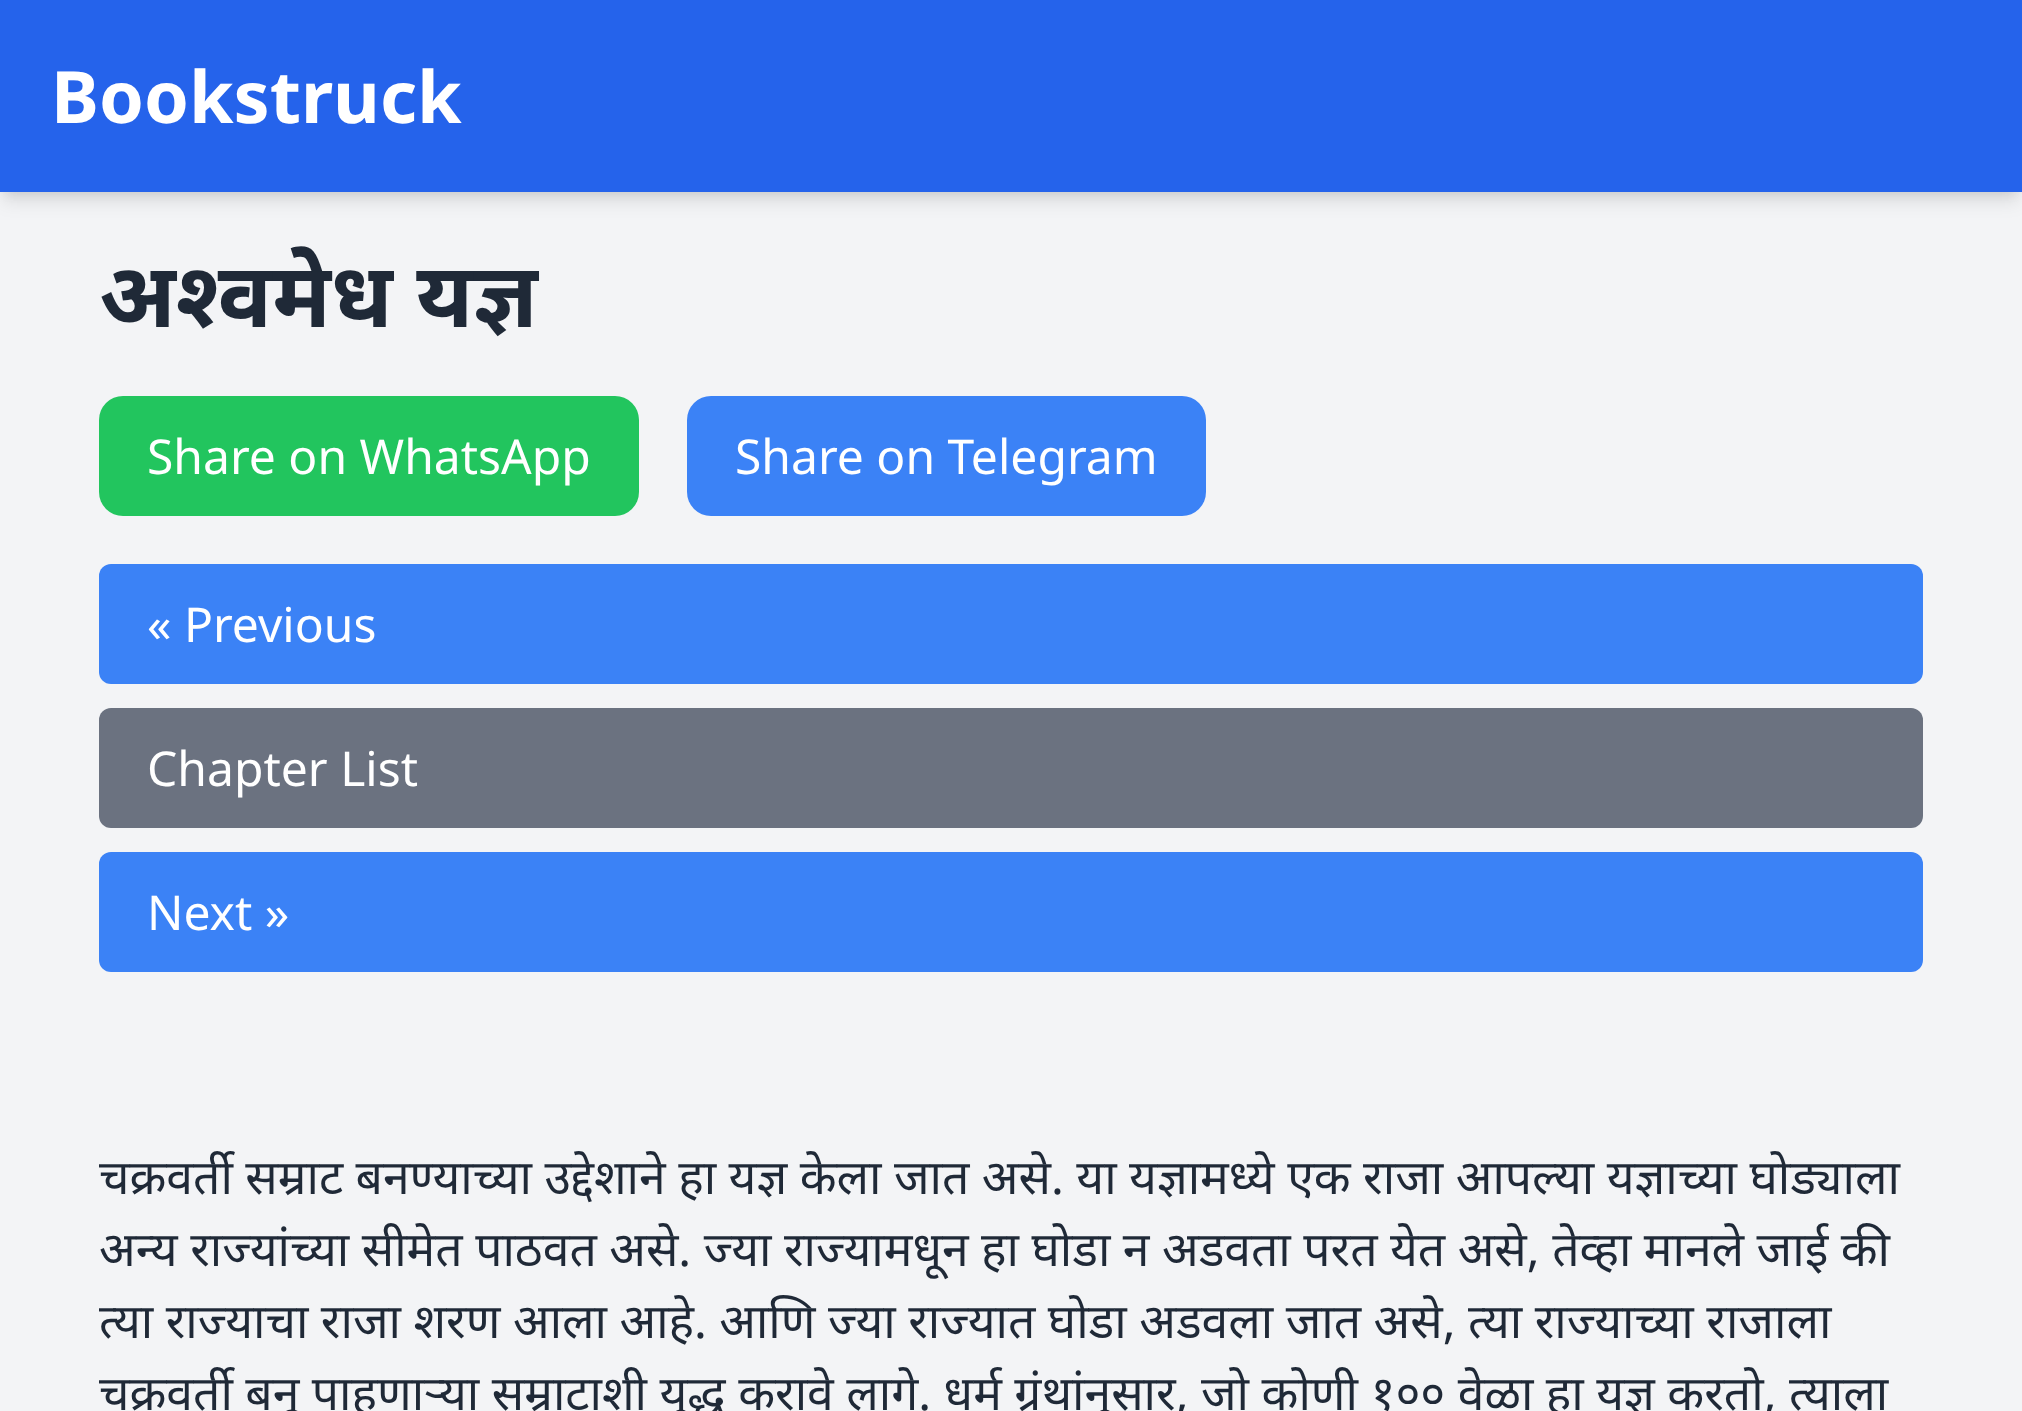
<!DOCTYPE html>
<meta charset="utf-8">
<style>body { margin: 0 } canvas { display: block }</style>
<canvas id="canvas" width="2022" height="1411"></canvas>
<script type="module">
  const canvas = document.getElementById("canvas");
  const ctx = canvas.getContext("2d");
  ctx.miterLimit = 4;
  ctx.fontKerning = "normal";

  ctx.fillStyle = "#f3f4f6";
  ctx.fillRect(0, 0, 2022, 1411);
  ctx.fillStyle = "rgba(0, 0, 0, 0.1)";
  ctx.filter = "blur(6px)";
  ctx.beginPath();
  ctx.rect(6, 12, 2010, 180);
  ctx.fill();
  ctx.filter = "none";
  ctx.filter = "blur(9px)";
  ctx.beginPath();
  ctx.rect(3, 15, 2016, 186);
  ctx.fill();
  ctx.filter = "none";
  ctx.fillStyle = "#2563eb";
  ctx.fillRect(0, 0, 2022, 192);
  ctx.font = "bold 72px Noto Sans";
  ctx.fillStyle = "#ffffff";
  ctx.fillText("Bookstruck", 51, 123);
  ctx.font = "bold 90px Noto Sans";
  ctx.fillStyle = "#1f2937";
  ctx.fillText("अश्वमेध यज्ञ", 99, 327);
  ctx.fillStyle = "#22c55e";
  ctx.beginPath();
  ctx.roundRect(99, 396, 540, 120, 24);
  ctx.fill();
  ctx.font = "48px Noto Sans";
  ctx.fillStyle = "#ffffff";
  ctx.fillText("Share on WhatsApp", 147, 474);
  ctx.fillStyle = "#3b82f6";
  ctx.beginPath();
  ctx.roundRect(687, 396, 519, 120, 24);
  ctx.fill();
  ctx.fillStyle = "#ffffff";
  ctx.fillText("Share on Telegram", 735, 474);
  ctx.fillStyle = "#3b82f6";
  ctx.beginPath();
  ctx.roundRect(99, 564, 1824, 120, 12);
  ctx.fill();
  ctx.fillStyle = "#ffffff";
  ctx.fillText("« Previous", 147, 642);
  ctx.fillStyle = "#6b7280";
  ctx.beginPath();
  ctx.roundRect(99, 708, 1824, 120, 12);
  ctx.fill();
  ctx.fillStyle = "#ffffff";
  ctx.fillText("Chapter List", 147, 786);
  ctx.fillStyle = "#3b82f6";
  ctx.beginPath();
  ctx.roundRect(99, 852, 1824, 120, 12);
  ctx.fill();
  ctx.fillStyle = "#ffffff";
  ctx.fillText("Next »", 147, 930);
  ctx.fillStyle = "#1f2937";
  ctx.fillText("चक्रवर्ती सम्राट बनण्याच्या उद्देशाने हा यज्ञ केला जात असे. या यज्ञामध्ये एक राजा आपल्या यज्ञाच्या घोड्याला", 99, 1194);
  ctx.fillText("अन्य राज्यांच्या सीमेत पाठवत असे. ज्या राज्यामधून हा घोडा न अडवता परत येत असे, तेव्हा मानले जाई की", 99, 1266);
  ctx.fillText("त्या राज्याचा राजा शरण आला आहे. आणि ज्या राज्यात घोडा अडवला जात असे, त्या राज्याच्या राजाला", 99, 1338);
  ctx.fillText("चक्रवर्ती बनू पाहणाऱ्या सम्राटाशी युद्ध करावे लागे. धर्म ग्रंथांनुसार, जो कोणी १०० वेळा हा यज्ञ करतो, त्याला", 99, 1410);
</script>
